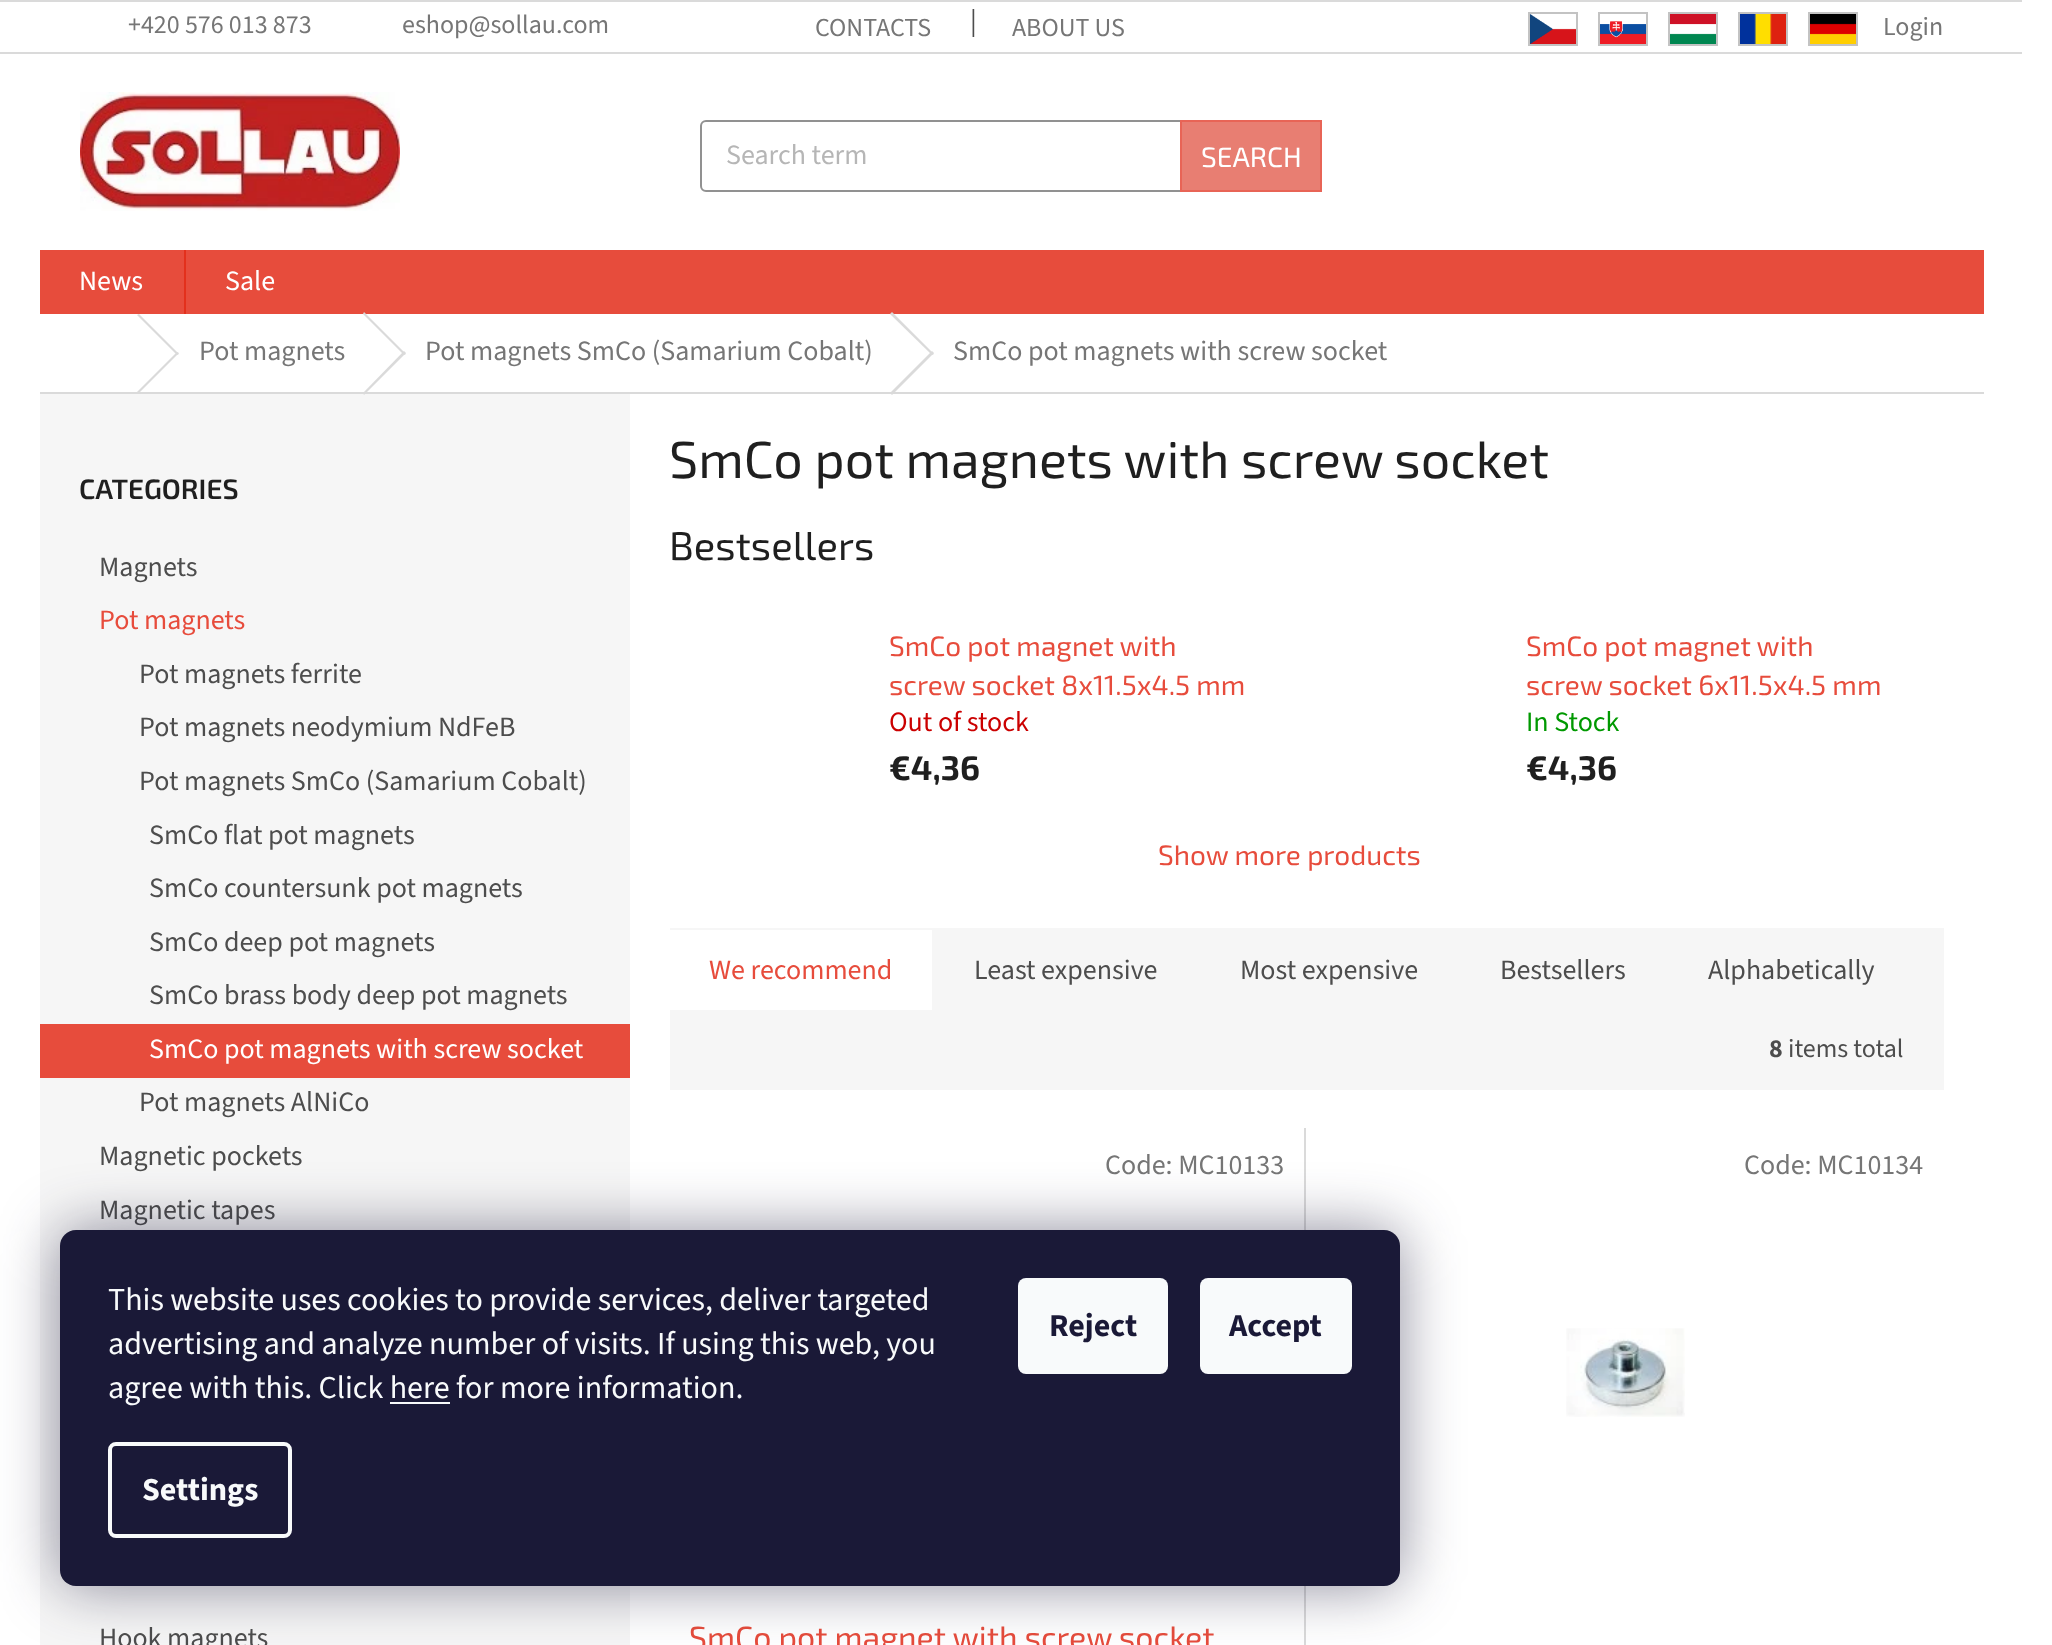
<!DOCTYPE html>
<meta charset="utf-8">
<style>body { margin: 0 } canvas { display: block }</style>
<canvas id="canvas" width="2052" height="1645"></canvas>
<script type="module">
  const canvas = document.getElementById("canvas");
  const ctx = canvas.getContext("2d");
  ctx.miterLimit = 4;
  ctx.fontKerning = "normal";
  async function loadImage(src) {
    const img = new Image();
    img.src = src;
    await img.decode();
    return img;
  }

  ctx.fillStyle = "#ffffff";
  ctx.fillRect(0, 0, 2052, 1645);
  ctx.fillStyle = "#dadada";
  ctx.fillRect(0, 0, 2022, 2);
  ctx.fillRect(0, 52, 2022, 2);
  ctx.font = "26px 'Source Sans 3'";
  ctx.fillStyle = "#767676";
  ctx.fillText("+420 576 013 873", 128, 33);
  ctx.fillText("eshop@sollau.com", 402, 33);
  ctx.fillText("CONTACTS", 815, 36);
  ctx.font = "28px 'Source Sans 3'";
  ctx.fillStyle = "#4d4d4d";
  ctx.fillText("|", 970, 30);
  ctx.font = "26px 'Source Sans 3'";
  ctx.fillStyle = "#767676";
  ctx.fillText("ABOUT US", 1012, 36);
  ctx.strokeStyle = "#c3c3c3";
  ctx.lineWidth = 2;
  ctx.strokeRect(1529, 13, 48, 32);
  ctx.strokeRect(1599, 13, 48, 32);
  ctx.strokeRect(1669, 13, 48, 32);
  ctx.strokeRect(1739, 13, 48, 32);
  ctx.strokeRect(1809, 13, 48, 32);
  ctx.drawImage(await loadImage("img1.png"), 1530, 14, 46, 30);
  ctx.drawImage(await loadImage("img2.png"), 1600, 21, 46, 23);
  ctx.drawImage(await loadImage("img3.png"), 1670, 14, 46, 30);
  ctx.drawImage(await loadImage("img4.png"), 1740, 14, 46, 30);
  ctx.drawImage(await loadImage("img5.png"), 1810, 14, 46, 30);
  ctx.fillText("Login", 1883, 35);
  ctx.drawImage(await loadImage("img6.png"), 80, 92, 320, 119);
  ctx.beginPath();
  ctx.roundRect(701, 121, 620, 70, 5);
  ctx.strokeStyle = "#919191";
  ctx.stroke();
  ctx.font = "28px 'Source Sans 3'";
  ctx.fillStyle = "#b6b6b6";
  ctx.fillText("Search term", 726, 164);
  ctx.fillStyle = "#e87e72";
  ctx.beginPath();
  ctx.rect(1181, 121, 140, 70);
  ctx.fill();
  ctx.strokeStyle = "#e86456";
  ctx.stroke();
  ctx.font = "28px 'Exo 2'";
  ctx.fillStyle = "#ffffff";
  ctx.fillText("SEARCH", 1201, 167);
  ctx.fillStyle = "#e74c3c";
  ctx.fillRect(40, 250, 1944, 64);
  ctx.font = "28px 'Source Sans 3'";
  ctx.fillStyle = "#ffffff";
  ctx.fillText("News", 79, 290);
  ctx.fillStyle = "#e3301c";
  ctx.fillRect(184, 250, 2, 64);
  ctx.fillStyle = "#ffffff";
  ctx.fillText("Sale", 225, 290);
  ctx.fillStyle = "#dadada";
  ctx.fillRect(40, 392, 1944, 2);
  ctx.beginPath();
  ctx.moveTo(137, 315);
  ctx.lineTo(139, 314);
  ctx.lineTo(179, 354);
  ctx.lineTo(177, 355);
  ctx.closePath();
  ctx.fill();
  ctx.beginPath();
  ctx.moveTo(177, 352);
  ctx.lineTo(179, 353);
  ctx.lineTo(139, 393);
  ctx.lineTo(137, 392);
  ctx.closePath();
  ctx.fill();
  ctx.fillStyle = "#767676";
  ctx.fillText("Pot magnets", 199, 360);
  ctx.fillStyle = "#dadada";
  ctx.beginPath();
  ctx.moveTo(363, 314);
  ctx.lineTo(364, 312);
  ctx.lineTo(406, 354);
  ctx.lineTo(404, 355);
  ctx.closePath();
  ctx.fill();
  ctx.fillStyle = "#f6f6f6";
  ctx.fillRect(40, 394, 590, 1251);
  ctx.fillStyle = "#dadada";
  ctx.beginPath();
  ctx.moveTo(404, 351);
  ctx.lineTo(406, 353);
  ctx.lineTo(364, 395);
  ctx.lineTo(363, 393);
  ctx.closePath();
  ctx.fill();
  ctx.fillStyle = "#767676";
  ctx.fillText("Pot magnets SmCo (Samarium Cobalt)", 425, 360);
  ctx.fillStyle = "#dadada";
  ctx.beginPath();
  ctx.moveTo(890, 314);
  ctx.lineTo(892, 312);
  ctx.lineTo(934, 354);
  ctx.lineTo(932, 355);
  ctx.closePath();
  ctx.fill();
  ctx.beginPath();
  ctx.moveTo(932, 351);
  ctx.lineTo(934, 353);
  ctx.lineTo(892, 395);
  ctx.lineTo(890, 393);
  ctx.closePath();
  ctx.fill();
  ctx.fillStyle = "#767676";
  ctx.fillText("SmCo pot magnets with screw socket", 953, 360);
  ctx.font = "600 28px 'Exo 2'";
  ctx.fillStyle = "#1f1f1f";
  ctx.fillText("CATEGORIES", 79, 499);
  ctx.font = "28px 'Source Sans 3'";
  ctx.fillStyle = "#4d4d4d";
  ctx.fillText("Magnets", 99, 576);
  ctx.fillStyle = "#e74c3c";
  ctx.fillText("Pot magnets", 99, 629);
  ctx.fillStyle = "#4d4d4d";
  ctx.fillText("Pot magnets ferrite", 139, 683);
  ctx.fillText("Pot magnets neodymium NdFeB", 139, 736);
  ctx.fillText("Pot magnets SmCo (Samarium Cobalt)", 139, 790);
  ctx.fillText("SmCo flat pot magnets", 149, 844);
  ctx.fillText("SmCo countersunk pot magnets", 149, 897);
  ctx.fillText("SmCo deep pot magnets", 149, 951);
  ctx.fillText("SmCo brass body deep pot magnets", 149, 1004);
  ctx.fillStyle = "#e74c3c";
  ctx.fillRect(40, 1024, 590, 54);
  ctx.fillStyle = "#ffffff";
  ctx.fillText("SmCo pot magnets with screw socket", 149, 1058);
  ctx.fillStyle = "#4d4d4d";
  ctx.fillText("Pot magnets AlNiCo", 139, 1111);
  ctx.fillText("Magnetic pockets", 99, 1165);
  ctx.fillText("Magnetic tapes", 99, 1219);
  ctx.fillText("Hook magnets", 99, 1647);
  ctx.font = "52px 'Exo 2'";
  ctx.fillStyle = "#1f1f1f";
  ctx.fillText("SmCo pot magnets with screw socket", 669, 478);
  ctx.font = "40px 'Exo 2'";
  ctx.fillText("Bestsellers", 669, 560);
  ctx.font = "28px 'Exo 2'";
  ctx.fillStyle = "#e74c3c";
  ctx.fillText("SmCo pot magnet with", 889, 656);
  ctx.fillText("screw socket 8x11.5x4.5 mm", 889, 695);
  ctx.font = "28px 'Source Sans 3'";
  ctx.fillStyle = "#cb0000";
  ctx.fillText("Out of stock", 889, 731);
  ctx.font = "bold 34px 'Exo 2'";
  ctx.fillStyle = "#1f1f1f";
  ctx.fillText("€4,36", 889, 780);
  ctx.font = "28px 'Exo 2'";
  ctx.fillStyle = "#e74c3c";
  ctx.fillText("SmCo pot magnet with", 1526, 656);
  ctx.fillText("screw socket 6x11.5x4.5 mm", 1526, 695);
  ctx.font = "28px 'Source Sans 3'";
  ctx.fillStyle = "#009901";
  ctx.fillText("In Stock", 1526, 731);
  ctx.font = "bold 34px 'Exo 2'";
  ctx.fillStyle = "#1f1f1f";
  ctx.fillText("€4,36", 1526, 780);
  ctx.font = "28px 'Exo 2'";
  ctx.fillStyle = "#e74c3c";
  ctx.fillText("Show more products", 1158, 865);
  ctx.fillStyle = "#f6f6f6";
  ctx.fillRect(670, 928, 1274, 162);
  ctx.fillStyle = "#ffffff";
  ctx.fillRect(670, 930, 262, 80);
  ctx.font = "28px 'Source Sans 3'";
  ctx.fillStyle = "#e74c3c";
  ctx.fillText("We recommend", 709, 979);
  ctx.fillStyle = "#4d4d4d";
  ctx.fillText("Least expensive", 974, 979);
  ctx.fillText("Most expensive", 1240, 979);
  ctx.fillText("Bestsellers", 1500, 979);
  ctx.fillText("Alphabetically", 1708, 979);
  ctx.font = "bold 26px 'Source Sans 3'";
  ctx.fillText("8", 1769, 1057);
  ctx.font = "26px 'Source Sans 3'";
  ctx.fillText("items total", 1788, 1057);
  ctx.fillStyle = "#dadada";
  ctx.fillRect(1304, 1128, 2, 517);
  ctx.font = "28px 'Source Sans 3'";
  ctx.fillStyle = "#767676";
  ctx.fillText("Code: MC10133", 1105, 1174);
  ctx.font = "32px 'Exo 2'";
  ctx.fillStyle = "#e74c3c";
  ctx.fillText("SmCo pot magnet with screw socket", 689, 1649);
  ctx.font = "28px 'Source Sans 3'";
  ctx.fillStyle = "#767676";
  ctx.fillText("Code: MC10134", 1744, 1174);
  ctx.drawImage(await loadImage("img7.png"), 1566, 1328, 119, 89);
  ctx.fillStyle = "rgba(27, 25, 57, 0.5)";
  ctx.filter = "blur(30px)";
  ctx.beginPath();
  ctx.roundRect(60, 1230, 1340, 356, 16);
  ctx.fill();
  ctx.filter = "none";
  ctx.fillStyle = "#1a1937";
  ctx.beginPath();
  ctx.roundRect(60, 1230, 1340, 356, 16);
  ctx.fill();
  ctx.font = "32px 'Source Sans 3'";
  ctx.fillStyle = "#f8fafb";
  ctx.fillText("This website uses cookies to provide services, deliver targeted", 108, 1310);
  ctx.fillText("advertising and analyze number of visits. If using this web, you", 108, 1354);
  ctx.fillText("agree with this. Click here for more information.", 108, 1398);
  ctx.fillRect(390, 1402, 60, 2);
  ctx.beginPath();
  ctx.roundRect(110, 1444, 180, 92, 6);
  ctx.strokeStyle = "#f8fafb";
  ctx.lineWidth = 4;
  ctx.stroke();
  ctx.font = "bold 32px 'Source Sans 3'";
  ctx.fillText("Settings", 142, 1500);
  ctx.beginPath();
  ctx.roundRect(1018, 1278, 150, 96, 8);
  ctx.fill();
  ctx.fillStyle = "#1a1937";
  ctx.fillText("Reject", 1049, 1336);
  ctx.fillStyle = "#f8fafb";
  ctx.beginPath();
  ctx.roundRect(1200, 1278, 152, 96, 8);
  ctx.fill();
  ctx.fillStyle = "#1a1937";
  ctx.fillText("Accept", 1229, 1336);
</script>
